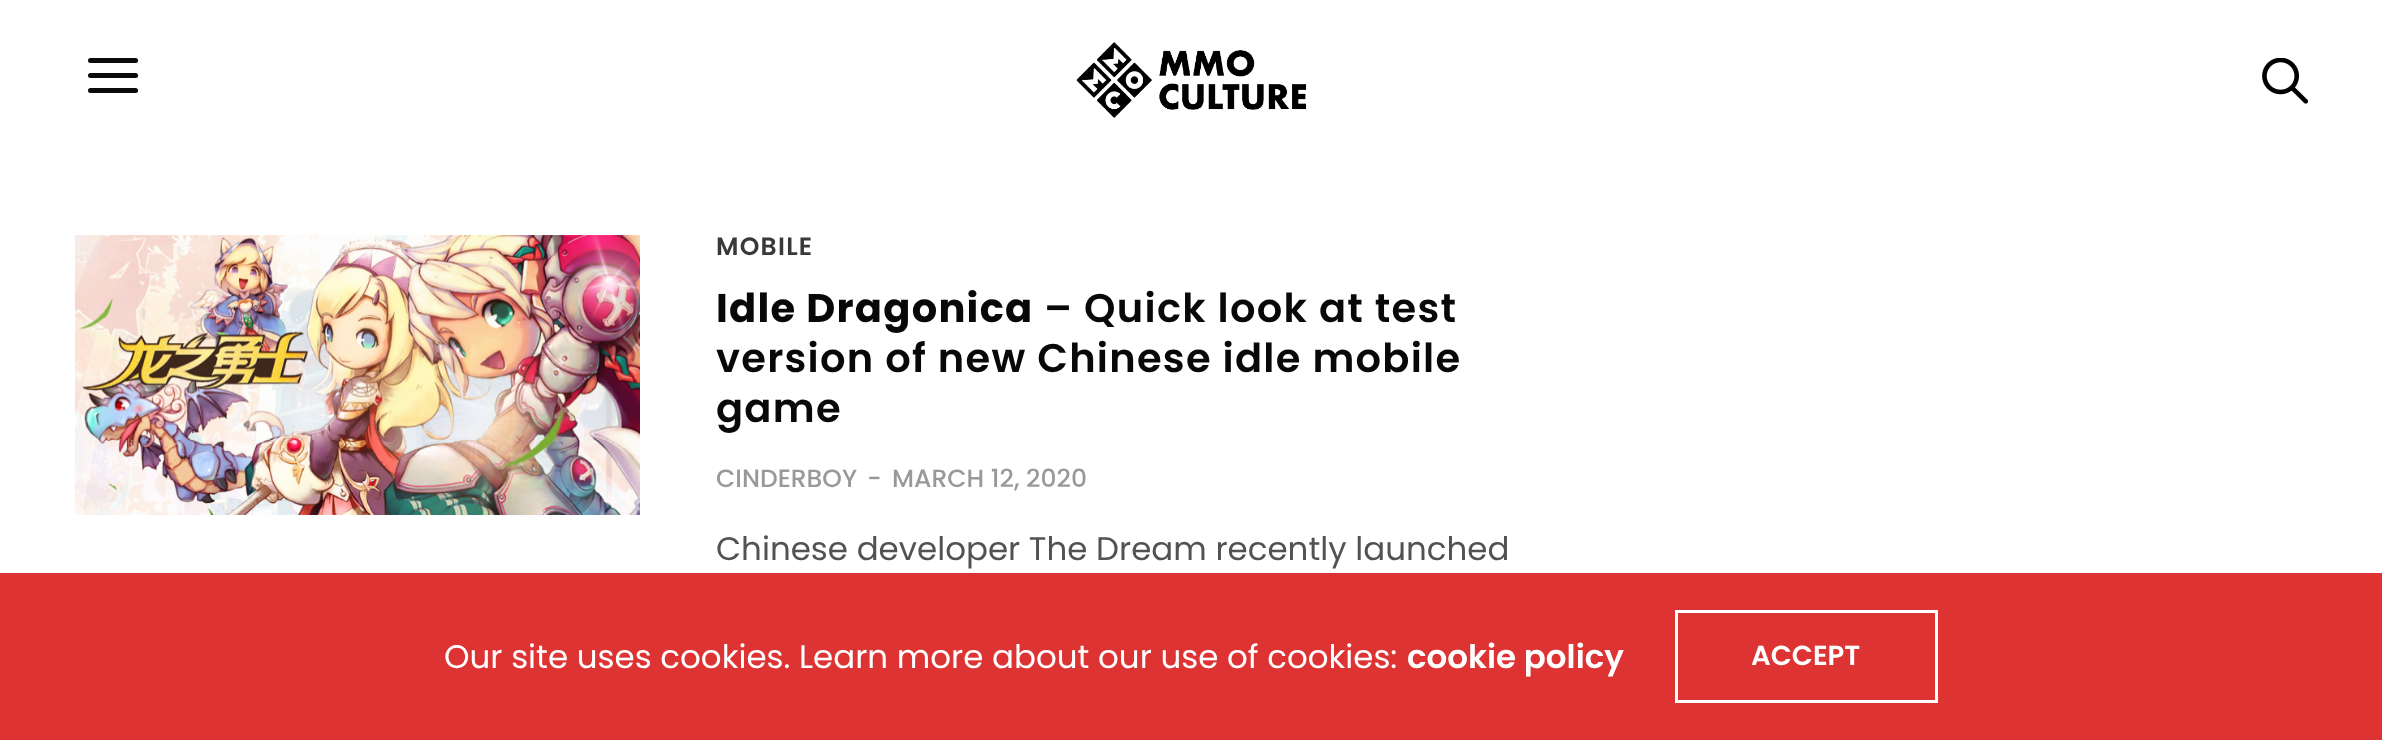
<!DOCTYPE html>
<meta charset="utf-8">
<style>body { margin: 0 } canvas { display: block }</style>
<canvas id="canvas" width="2382" height="740"></canvas>
<script type="module">
  const canvas = document.getElementById("canvas");
  const ctx = canvas.getContext("2d");
  ctx.miterLimit = 4;
  ctx.fontKerning = "normal";
  async function loadImage(src) {
    const img = new Image();
    img.src = src;
    await img.decode();
    return img;
  }

  ctx.fillStyle = "#ffffff";
  ctx.fillRect(0, 0, 2382, 740);
  ctx.fillStyle = "#0a0a0a";
  ctx.beginPath();
  ctx.roundRect(88, 58, 50, 5, 2.5);
  ctx.fill();
  ctx.beginPath();
  ctx.roundRect(88, 73, 50, 5, 2.5);
  ctx.fill();
  ctx.beginPath();
  ctx.roundRect(88, 88, 50, 5, 2.5);
  ctx.fill();
  ctx.drawImage(await loadImage("img1.png"), 1076, 42, 231, 76);
  ctx.drawImage(await loadImage("img2.png"), 2262, 58, 46, 46);
  ctx.drawImage(await loadImage("img3.png"), 75, 235, 565, 280);
  ctx.letterSpacing = "1.25px";
  ctx.font = "600 25px Poppins";
  ctx.fillStyle = "#393939";
  ctx.fillText("MOBILE", 716, 255);
  ctx.font = "bold 40px Poppins";
  ctx.fillStyle = "#080808";
  ctx.fillText("Idle Dragonica", 716, 322);
  ctx.font = "600 40px Poppins";
  ctx.fillText("– Quick look at test", 1044, 322);
  ctx.fillText("version of new Chinese idle mobile", 716, 372);
  ctx.fillText("game", 716, 422);
  ctx.letterSpacing = "0px";
  ctx.font = "500 25px Poppins";
  ctx.fillStyle = "#999999";
  ctx.fillText("CINDERBOY", 716, 487);
  ctx.fillText("-", 867, 487);
  ctx.fillText("MARCH 12, 2020", 892, 487);
  ctx.font = "32.5px Poppins";
  ctx.fillStyle = "#525252";
  ctx.fillText("Chinese developer The Dream recently launched", 716, 560);
  ctx.fillStyle = "#dd3333";
  ctx.fillRect(0, 573, 2382, 167);
  ctx.fillStyle = "#ffffff";
  ctx.fillText("Our site uses cookies. Learn more about our use of cookies:", 444, 668);
  ctx.font = "600 32.5px Poppins";
  ctx.fillText("cookie policy", 1407, 668);
  ctx.strokeStyle = "#ffffff";
  ctx.lineWidth = 3;
  ctx.strokeRect(1676.5, 611.5, 260, 90);
  ctx.font = "600 27.5px Poppins";
  ctx.fillText("ACCEPT", 1751, 665);
</script>
